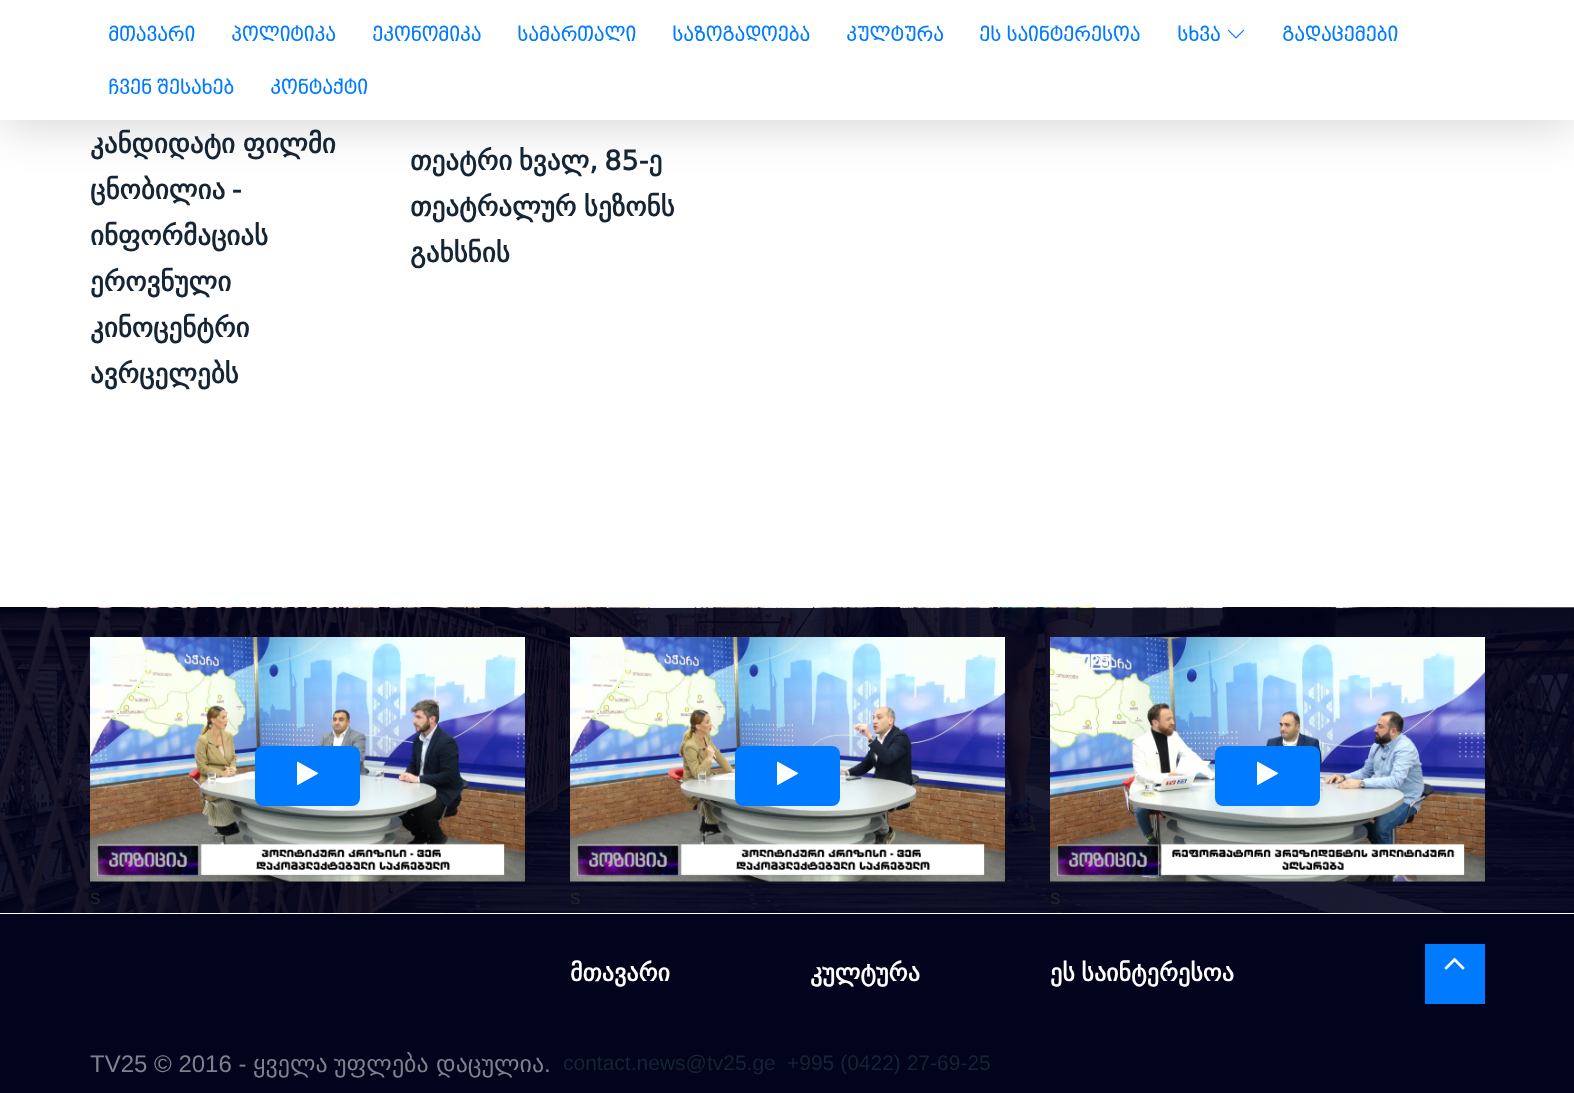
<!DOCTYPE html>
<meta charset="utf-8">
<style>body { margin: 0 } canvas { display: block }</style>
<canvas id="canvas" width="1574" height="1093"></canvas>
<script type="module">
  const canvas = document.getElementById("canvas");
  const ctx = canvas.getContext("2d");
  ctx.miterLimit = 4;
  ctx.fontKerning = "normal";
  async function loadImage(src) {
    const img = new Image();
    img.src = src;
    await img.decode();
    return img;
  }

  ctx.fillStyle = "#ffffff";
  ctx.fillRect(0, 0, 1574, 1093);
  ctx.fillStyle = "rgba(0, 0, 0, 0.15)";
  ctx.filter = "blur(22.5px)";
  ctx.beginPath();
  ctx.rect(0, 8, 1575, 120);
  ctx.fill();
  ctx.filter = "none";
  ctx.fillStyle = "#ffffff";
  ctx.fillRect(0, 0, 1574, 120);
  ctx.font = "bold 21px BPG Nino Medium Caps";
  ctx.fillStyle = "#007bff";
  ctx.fillText("მთავარი", 108, 41);
  ctx.fillText("პოლიტიკა", 231, 41);
  ctx.fillText("ეკონომიკა", 372, 41);
  ctx.fillText("სამართალი", 517, 41);
  ctx.fillText("საზოგადოება", 672, 41);
  ctx.fillText("კულტურა", 846, 41);
  ctx.fillText("ეს საინტერესოა", 979, 41);
  ctx.fillText("სხვა", 1177, 41);
  ctx.drawImage(await loadImage("img1.png"), 1227, 29, 17, 10);
  ctx.fillText("გადაცემები", 1282, 41);
  ctx.fillText("ჩვენ შესახებ", 108, 94);
  ctx.fillText("კონტაქტი", 270, 94);
  ctx.wordSpacing = "-1px";
  ctx.font = "bold 27px DejaVu Sans";
  ctx.fillStyle = "#152535";
  ctx.fillText("კანდიდატი ფილმი", 90, 153);
  ctx.wordSpacing = "-2px";
  ctx.fillText("ცნობილია -", 90, 199);
  ctx.wordSpacing = "0px";
  ctx.fillText("ინფორმაციას", 90, 245);
  ctx.fillText("ეროვნული", 90, 291);
  ctx.fillText("კინოცენტრი", 90, 337);
  ctx.fillText("ავრცელებს", 90, 383);
  ctx.wordSpacing = "-2px";
  ctx.fillText("თეატრი ხვალ, 85-ე", 410, 170);
  ctx.wordSpacing = "-1px";
  ctx.fillText("თეატრალურ სეზონს", 410, 216);
  ctx.wordSpacing = "0px";
  ctx.fillText("გახსნის", 410, 262);
  ctx.drawImage(await loadImage("img2.png"), 0, 607, 1574, 306);
  ctx.drawImage(await loadImage("img3.png"), 90, 637, 435, 245);
  ctx.fillStyle = "#007bff";
  ctx.beginPath();
  ctx.roundRect(255, 746, 105, 60, 8);
  ctx.fill();
  ctx.drawImage(await loadImage("img4.png"), 297, 761, 22, 24);
  ctx.font = "21px Liberation Sans";
  ctx.fillStyle = "#212529";
  ctx.fillText("s", 90, 904);
  ctx.drawImage(await loadImage("img5.png"), 570, 637, 435, 245);
  ctx.fillStyle = "#007bff";
  ctx.beginPath();
  ctx.roundRect(735, 746, 105, 60, 8);
  ctx.fill();
  ctx.drawImage(await loadImage("img4.png"), 777, 761, 22, 24);
  ctx.fillStyle = "#212529";
  ctx.fillText("s", 570, 904);
  ctx.drawImage(await loadImage("img6.png"), 1050, 637, 435, 245);
  ctx.fillStyle = "#007bff";
  ctx.beginPath();
  ctx.roundRect(1215, 746, 105, 60, 8);
  ctx.fill();
  ctx.drawImage(await loadImage("img4.png"), 1257, 761, 22, 24);
  ctx.fillStyle = "#212529";
  ctx.fillText("s", 1050, 904);
  ctx.fillStyle = "#02031c";
  ctx.fillRect(0, 914, 1574, 179);
  ctx.font = "bold 24px DejaVu Sans";
  ctx.fillStyle = "#ffffff";
  ctx.fillText("მთავარი", 570, 981);
  ctx.fillText("კულტურა", 810, 981);
  ctx.wordSpacing = "-1px";
  ctx.fillText("ეს საინტერესოა", 1050, 981);
  ctx.wordSpacing = "0px";
  ctx.font = "24px Liberation Sans";
  ctx.fillStyle = "#81818e";
  ctx.fillText("TV25 © 2016 -", 90, 1072);
  ctx.font = "24px DejaVu Sans";
  ctx.fillText("ყველა", 253, 1072);
  ctx.fillText("უფლება", 334, 1072);
  ctx.fillText("დაცულია", 436, 1072);
  ctx.font = "24px Liberation Sans";
  ctx.fillText(".", 544, 1072);
  ctx.font = "21px Liberation Sans";
  ctx.fillStyle = "#152535";
  ctx.fillText("contact.news@tv25.ge", 563, 1070);
  ctx.fillText("+995 (0422) 27-69-25", 787, 1070);
  ctx.fillStyle = "#007bff";
  ctx.fillRect(1425, 944, 60, 60);
  ctx.drawImage(await loadImage("img7.png"), 1444, 958, 21, 12);
</script>
